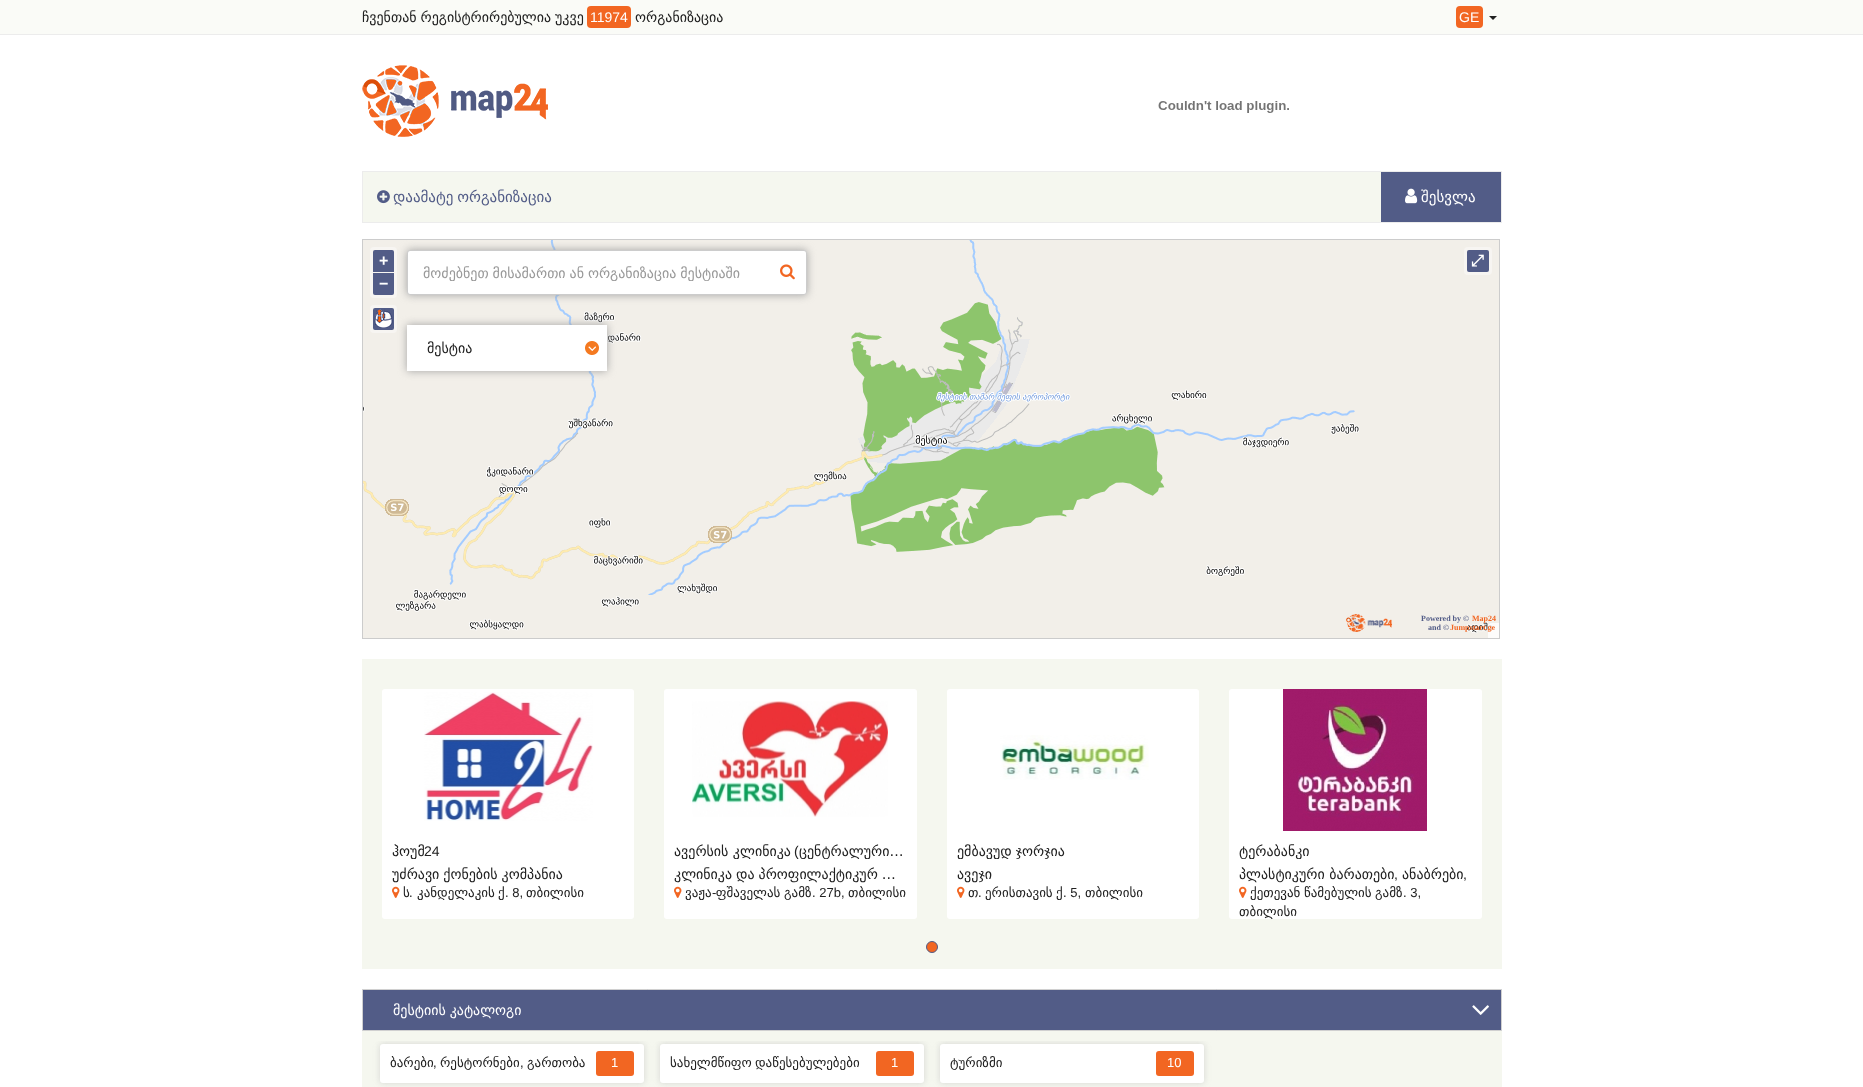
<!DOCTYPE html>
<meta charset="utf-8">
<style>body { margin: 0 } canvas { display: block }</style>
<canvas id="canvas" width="1863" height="1087"></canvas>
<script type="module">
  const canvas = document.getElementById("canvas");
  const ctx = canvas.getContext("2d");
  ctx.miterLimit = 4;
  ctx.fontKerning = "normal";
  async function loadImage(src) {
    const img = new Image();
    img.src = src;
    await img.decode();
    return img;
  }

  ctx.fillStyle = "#ffffff";
  ctx.fillRect(0, 0, 1863, 1087);
  ctx.fillStyle = "#fafbf7";
  ctx.fillRect(0, 0, 1863, 34);
  ctx.fillStyle = "#ececec";
  ctx.fillRect(0, 34, 1863, 1);
  ctx.wordSpacing = "-0.5px";
  ctx.font = "14px DejaVu Sans";
  ctx.fillStyle = "#212121";
  ctx.fillText("ჩვენთან რეგისტრირებულია უკვე", 362, 22);
  ctx.fillStyle = "#f26622";
  ctx.beginPath();
  ctx.roundRect(587, 6, 44, 22, 4);
  ctx.fill();
  ctx.wordSpacing = "0px";
  ctx.font = "14px Liberation Sans";
  ctx.fillStyle = "#ffffff";
  ctx.fillText("11974", 590, 22);
  ctx.font = "14px DejaVu Sans";
  ctx.fillStyle = "#212121";
  ctx.fillText("ორგანიზაცია", 635, 22);
  ctx.fillStyle = "#f26622";
  ctx.beginPath();
  ctx.roundRect(1456, 6, 27, 22, 4);
  ctx.fill();
  ctx.font = "14px Liberation Sans";
  ctx.fillStyle = "#ffffff";
  ctx.fillText("GE", 1459, 22);
  ctx.fillStyle = "#212121";
  ctx.beginPath();
  ctx.moveTo(1489, 16);
  ctx.lineTo(1497, 16);
  ctx.lineTo(1493, 20);
  ctx.closePath();
  ctx.fill();
  ctx.drawImage(await loadImage("img1.png"), 362, 65, 186, 72);
  ctx.drawImage(await loadImage("img2.png"), 1158, 101, 131, 12);
  ctx.fillStyle = "#f5f7ef";
  ctx.fillRect(363, 172, 1018, 50);
  ctx.strokeStyle = "#ececec";
  ctx.strokeRect(362.5, 171.5, 1139, 51);
  ctx.drawImage(await loadImage("img3.png"), 377, 190, 13, 14);
  ctx.wordSpacing = "-1px";
  ctx.font = "15px DejaVu Sans";
  ctx.fillStyle = "#525c87";
  ctx.fillText("დაამატე ორგანიზაცია", 393, 202);
  ctx.fillRect(1381, 172, 120, 50);
  ctx.drawImage(await loadImage("img4.png"), 1405, 188, 13, 16);
  ctx.wordSpacing = "0px";
  ctx.fillStyle = "#ffffff";
  ctx.fillText("შესვლა", 1421, 202);
  ctx.strokeStyle = "#cccccc";
  ctx.strokeRect(362.5, 239.5, 1137, 399);
  ctx.drawImage(await loadImage("img5.png"), 363, 240, 1136, 398);
  ctx.fillStyle = "#f7f5f2";
  ctx.beginPath();
  ctx.roundRect(370, 247, 27, 51, 4);
  ctx.fill();
  ctx.fillStyle = "#525c87";
  ctx.beginPath();
  ctx.roundRect(373, 250, 21, 22, [2, 2, 0, 0]);
  ctx.fill();
  ctx.font = "bold 16px Liberation Sans";
  ctx.fillStyle = "#ffffff";
  ctx.fillText("+", 379, 266);
  ctx.fillStyle = "#525c87";
  ctx.beginPath();
  ctx.roundRect(373, 273, 21, 22, [0, 0, 2, 2]);
  ctx.fill();
  ctx.fillStyle = "#ffffff";
  ctx.fillText("−", 379, 289);
  ctx.fillStyle = "#f7f5f2";
  ctx.beginPath();
  ctx.roundRect(1464, 247, 28, 28, 4);
  ctx.fill();
  ctx.fillStyle = "#525c87";
  ctx.beginPath();
  ctx.roundRect(1467, 250, 22, 22, 2);
  ctx.fill();
  ctx.font = "bold 16px FreeSerif";
  ctx.fillStyle = "#ffffff";
  ctx.fillText("⤢", 1471, 266);
  ctx.fillStyle = "#f7f5f2";
  ctx.beginPath();
  ctx.roundRect(370, 305, 27, 28, 4);
  ctx.fill();
  ctx.fillStyle = "#525c87";
  ctx.beginPath();
  ctx.roundRect(373, 308, 21, 22, 2);
  ctx.fill();
  ctx.drawImage(await loadImage("img6.png"), 374, 309, 19, 19);
  ctx.fillStyle = "rgba(255, 255, 255, 0.8)";
  ctx.beginPath();
  ctx.roundRect(1488, 623, 11, 15, [4, 0, 0, 0]);
  ctx.fill();
  ctx.drawImage(await loadImage("img7.png"), 1346, 614, 46, 18);
  ctx.font = "bold 8px Liberation Serif";
  ctx.fillStyle = "#525c87";
  ctx.fillText("Powered by ©", 1421, 621);
  ctx.fillStyle = "#f26622";
  ctx.fillText("Map24", 1472, 621);
  ctx.fillStyle = "#525c87";
  ctx.fillText("and ©", 1428, 630);
  ctx.fillStyle = "#f26622";
  ctx.fillText("Jumpstart.ge", 1450, 630);
  ctx.fillStyle = "#a2a2a2";
  ctx.filter = "blur(4.5px)";
  ctx.beginPath();
  ctx.roundRect(407, 250, 400, 45, 3);
  ctx.fill();
  ctx.filter = "none";
  ctx.fillStyle = "#ffffff";
  ctx.beginPath();
  ctx.roundRect(407.5, 250.5, 399, 44, 2.5);
  ctx.fill();
  ctx.stroke();
  ctx.save();
  ctx.beginPath();
  ctx.rect(423, 265, 333, 16);
  ctx.clip();
  ctx.wordSpacing = "-0.5px";
  ctx.font = "14px DejaVu Sans";
  ctx.fillStyle = "#999999";
  ctx.fillText("მოძებნეთ მისამართი ან ორგანიზაცია მესტიაში", 423, 278);
  ctx.restore();
  ctx.drawImage(await loadImage("img8.png"), 780, 264, 15, 16);
  ctx.fillStyle = "#a2a2a2";
  ctx.filter = "blur(4.5px)";
  ctx.beginPath();
  ctx.rect(407, 325, 200, 46);
  ctx.fill();
  ctx.filter = "none";
  ctx.fillStyle = "#ffffff";
  ctx.fillRect(407, 325, 200, 46);
  ctx.font = "14px DejaVu Sans";
  ctx.fillStyle = "#212121";
  ctx.fillText("მესტია", 427, 353);
  ctx.drawImage(await loadImage("img9.png"), 585, 341, 14, 14);
  ctx.fillStyle = "#f5f7ef";
  ctx.fillRect(362, 659, 1140, 310);
  ctx.fillStyle = "#ffffff";
  ctx.beginPath();
  ctx.roundRect(382, 689, 252, 230, 3);
  ctx.fill();
  ctx.drawImage(await loadImage("img10.png"), 424, 692, 169, 129);
  ctx.save();
  ctx.beginPath();
  ctx.rect(392, 844, 232, 15);
  ctx.clip();
  ctx.fillStyle = "#212121";
  ctx.fillText("ჰოუმ", 392, 856);
  ctx.restore();
  ctx.font = "14px Liberation Sans";
  ctx.fillStyle = "#212121";
  ctx.fillText("24", 424, 856);
  ctx.wordSpacing = "-0.5px";
  ctx.font = "14px DejaVu Sans";
  ctx.fillText("უძრავი ქონების კომპანია", 392, 879);
  ctx.drawImage(await loadImage("img11.png"), 392, 886, 8, 12);
  ctx.wordSpacing = "0px";
  ctx.font = "13px DejaVu Sans";
  ctx.fillText("ს", 403, 897);
  ctx.font = "13px Liberation Sans";
  ctx.fillText(".", 409, 897);
  ctx.font = "13px DejaVu Sans";
  ctx.fillText("კანდელაკის", 417, 897);
  ctx.fillText("ქ", 498, 897);
  ctx.font = "13px Liberation Sans";
  ctx.fillText(". 8,", 505, 897);
  ctx.font = "13px DejaVu Sans";
  ctx.fillText("თბილისი", 526, 897);
  ctx.fillStyle = "#ffffff";
  ctx.beginPath();
  ctx.roundRect(664, 689, 253, 230, 3);
  ctx.fill();
  ctx.drawImage(await loadImage("img12.png"), 692, 701, 196, 116);
  ctx.save();
  ctx.beginPath();
  ctx.rect(674, 844, 233, 15);
  ctx.clip();
  ctx.font = "14px DejaVu Sans";
  ctx.fillStyle = "#212121";
  ctx.fillText("ავერსის კლინიკა", 674, 856);
  ctx.restore();
  ctx.font = "14px Liberation Sans";
  ctx.fillStyle = "#212121";
  ctx.fillText("(", 794, 856);
  ctx.save();
  ctx.beginPath();
  ctx.rect(674, 844, 233, 15);
  ctx.clip();
  ctx.font = "14px DejaVu Sans";
  ctx.fillText("ცენტრალური…", 799, 856);
  ctx.restore();
  ctx.wordSpacing = "-0.5px";
  ctx.font = "14px DejaVu Sans";
  ctx.fillText("კლინიკა და პროფილაქტიკურ …", 674, 879);
  ctx.drawImage(await loadImage("img11.png"), 674, 886, 8, 12);
  ctx.wordSpacing = "0px";
  ctx.font = "13px DejaVu Sans";
  ctx.fillText("ვაჟა ფშაველას", 685, 897);
  ctx.fillText("გამზ", 784, 897);
  ctx.font = "13px Liberation Sans";
  ctx.fillText(". 27b,", 812, 897);
  ctx.font = "13px DejaVu Sans";
  ctx.fillText("თბილისი", 848, 897);
  ctx.font = "13px Liberation Sans";
  ctx.fillText("-", 712, 897);
  ctx.fillStyle = "#ffffff";
  ctx.beginPath();
  ctx.roundRect(947, 689, 252, 230, 3);
  ctx.fill();
  ctx.drawImage(await loadImage("img13.png"), 1000, 735, 149, 45);
  ctx.save();
  ctx.beginPath();
  ctx.rect(957, 844, 232, 15);
  ctx.clip();
  ctx.wordSpacing = "-0.5px";
  ctx.font = "14px DejaVu Sans";
  ctx.fillStyle = "#212121";
  ctx.fillText("ემბავუდ ჯორჯია", 957, 856);
  ctx.restore();
  ctx.font = "14px DejaVu Sans";
  ctx.fillStyle = "#212121";
  ctx.fillText("ავეჯი", 957, 879);
  ctx.drawImage(await loadImage("img11.png"), 957, 886, 8, 12);
  ctx.font = "13px DejaVu Sans";
  ctx.fillText("თ", 968, 897);
  ctx.font = "13px Liberation Sans";
  ctx.fillText(".", 978, 897);
  ctx.font = "13px DejaVu Sans";
  ctx.fillText("ერისთავის", 985, 897);
  ctx.fillText("ქ", 1056, 897);
  ctx.font = "13px Liberation Sans";
  ctx.fillText(". 5,", 1063, 897);
  ctx.font = "13px DejaVu Sans";
  ctx.fillText("თბილისი", 1085, 897);
  ctx.fillStyle = "#ffffff";
  ctx.beginPath();
  ctx.roundRect(1229, 689, 253, 230, 3);
  ctx.fill();
  ctx.drawImage(await loadImage("img14.png"), 1283, 689, 144, 142);
  ctx.save();
  ctx.beginPath();
  ctx.rect(1239, 844, 233, 15);
  ctx.clip();
  ctx.font = "14px DejaVu Sans";
  ctx.fillStyle = "#212121";
  ctx.fillText("ტერაბანკი", 1239, 856);
  ctx.restore();
  ctx.font = "14px DejaVu Sans";
  ctx.fillStyle = "#212121";
  ctx.fillText("პლასტიკური ბარათები", 1239, 879);
  ctx.font = "14px Liberation Sans";
  ctx.fillText(",", 1394, 879);
  ctx.font = "14px DejaVu Sans";
  ctx.fillText("ანაბრები", 1402, 879);
  ctx.font = "14px Liberation Sans";
  ctx.fillText(",", 1463, 879);
  ctx.drawImage(await loadImage("img11.png"), 1239, 886, 8, 12);
  ctx.font = "13px DejaVu Sans";
  ctx.fillText("ქეთევან", 1250, 897);
  ctx.fillText("წამებულის", 1304, 897);
  ctx.fillText("გამზ", 1375, 897);
  ctx.font = "13px Liberation Sans";
  ctx.fillText(". 3,", 1403, 897);
  ctx.font = "13px DejaVu Sans";
  ctx.fillText("თბილისი", 1239, 916);
  ctx.fillStyle = "#f26622";
  ctx.beginPath();
  ctx.arc(932, 947, 5.5, 0, Math.PI * 2);
  ctx.fill();
  ctx.strokeStyle = "#525c87";
  ctx.stroke();
  ctx.fillStyle = "#f5f7ef";
  ctx.fillRect(362, 1031, 1140, 56);
  ctx.fillStyle = "#525c87";
  ctx.beginPath();
  ctx.rect(362.5, 989.5, 1139, 41);
  ctx.fill();
  ctx.strokeStyle = "#d0d0d0";
  ctx.stroke();
  ctx.wordSpacing = "-0.5px";
  ctx.font = "14px DejaVu Sans";
  ctx.fillStyle = "#ffffff";
  ctx.fillText("მესტიის კატალოგი", 393, 1015);
  ctx.drawImage(await loadImage("img15.png"), 1472, 1005, 17, 10);
  ctx.save();
  ctx.beginPath();
  ctx.rect(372, 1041, 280, 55);
  ctx.clip();
  ctx.fillStyle = "rgba(193, 193, 193, 0.63)";
  ctx.filter = "blur(3px)";
  ctx.beginPath();
  ctx.roundRect(380, 1044, 264, 39, 3);
  ctx.fill();
  ctx.filter = "none";
  ctx.restore();
  ctx.beginPath();
  ctx.roundRect(380, 1044, 264, 39, 3);
  ctx.fill();
  ctx.wordSpacing = "0px";
  ctx.font = "13px DejaVu Sans";
  ctx.fillStyle = "#212121";
  ctx.fillText("ბარები", 390, 1067);
  ctx.font = "13px Liberation Sans";
  ctx.fillText(",", 433, 1067);
  ctx.font = "13px DejaVu Sans";
  ctx.fillText("რესტორნები", 440, 1067);
  ctx.font = "13px Liberation Sans";
  ctx.fillText(",", 520, 1067);
  ctx.font = "13px DejaVu Sans";
  ctx.fillText("გართობა", 527, 1067);
  ctx.fillStyle = "#f26622";
  ctx.beginPath();
  ctx.roundRect(596, 1051, 38, 25, 3);
  ctx.fill();
  ctx.font = "13px Liberation Sans";
  ctx.fillStyle = "#ffffff";
  ctx.fillText("1", 611, 1067);
  ctx.save();
  ctx.beginPath();
  ctx.rect(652, 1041, 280, 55);
  ctx.clip();
  ctx.fillStyle = "rgba(193, 193, 193, 0.63)";
  ctx.filter = "blur(3px)";
  ctx.beginPath();
  ctx.roundRect(660, 1044, 264, 39, 3);
  ctx.fill();
  ctx.filter = "none";
  ctx.restore();
  ctx.beginPath();
  ctx.roundRect(660, 1044, 264, 39, 3);
  ctx.fill();
  ctx.wordSpacing = "-1px";
  ctx.font = "13px DejaVu Sans";
  ctx.fillStyle = "#212121";
  ctx.fillText("სახელმწიფო დაწესებულებები", 670, 1067);
  ctx.fillStyle = "#f26622";
  ctx.beginPath();
  ctx.roundRect(876, 1051, 38, 25, 3);
  ctx.fill();
  ctx.wordSpacing = "0px";
  ctx.font = "13px Liberation Sans";
  ctx.fillStyle = "#ffffff";
  ctx.fillText("1", 891, 1067);
  ctx.save();
  ctx.beginPath();
  ctx.rect(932, 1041, 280, 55);
  ctx.clip();
  ctx.fillStyle = "rgba(193, 193, 193, 0.63)";
  ctx.filter = "blur(3px)";
  ctx.beginPath();
  ctx.roundRect(940, 1044, 264, 39, 3);
  ctx.fill();
  ctx.filter = "none";
  ctx.restore();
  ctx.beginPath();
  ctx.roundRect(940, 1044, 264, 39, 3);
  ctx.fill();
  ctx.font = "13px DejaVu Sans";
  ctx.fillStyle = "#212121";
  ctx.fillText("ტურიზმი", 950, 1067);
  ctx.fillStyle = "#f26622";
  ctx.beginPath();
  ctx.roundRect(1156, 1051, 38, 25, 3);
  ctx.fill();
  ctx.font = "13px Liberation Sans";
  ctx.fillStyle = "#ffffff";
  ctx.fillText("10", 1167, 1067);
</script>
